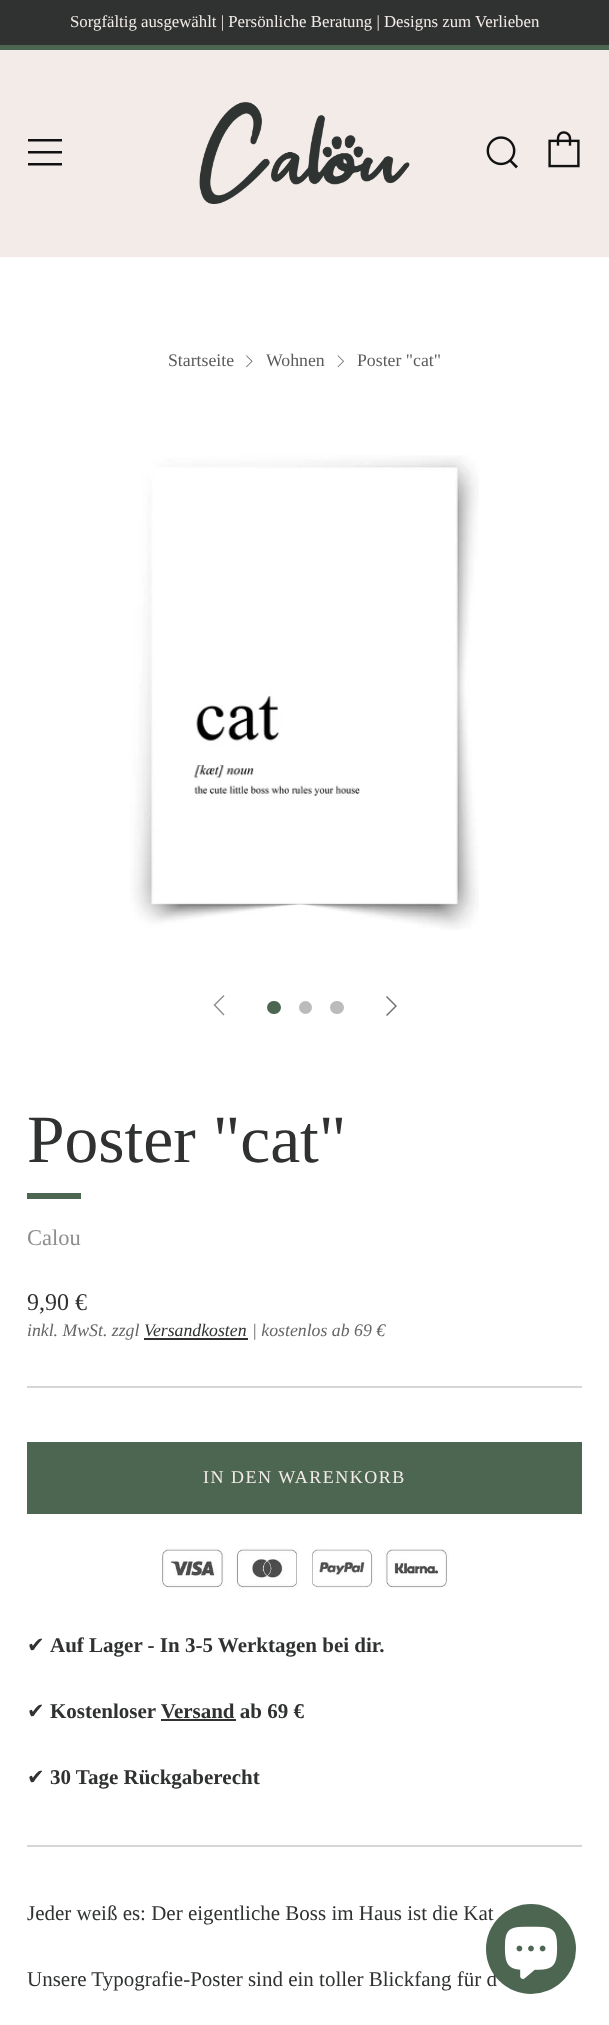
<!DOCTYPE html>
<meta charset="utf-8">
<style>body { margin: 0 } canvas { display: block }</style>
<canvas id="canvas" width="609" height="2025"></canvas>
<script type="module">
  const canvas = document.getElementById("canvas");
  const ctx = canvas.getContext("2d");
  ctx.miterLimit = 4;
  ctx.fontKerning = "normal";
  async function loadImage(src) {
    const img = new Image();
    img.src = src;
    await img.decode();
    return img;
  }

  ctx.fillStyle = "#ffffff";
  ctx.fillRect(0, 0, 609, 2025);
  ctx.fillStyle = "#2f3231";
  ctx.fillRect(0, 0, 609, 45);
  ctx.font = "16.8px Liberation Serif";
  ctx.fillStyle = "#f2ebe8";
  ctx.fillText("Sorgfältig ausgewählt | Persönliche Beratung | Designs zum Verlieben", 70, 27);
  ctx.fillStyle = "#4d6652";
  ctx.fillRect(0, 45, 609, 5);
  ctx.fillStyle = "#f2ebe8";
  ctx.fillRect(0, 50, 609, 207);
  ctx.fillStyle = "#111111";
  ctx.beginPath();
  ctx.moveTo(28, 141.5);
  ctx.lineTo(62, 141.5);
  ctx.lineTo(62, 139);
  ctx.lineTo(28, 139);
  ctx.closePath();
  ctx.moveTo(28, 165.5);
  ctx.lineTo(62, 165.5);
  ctx.lineTo(62, 163);
  ctx.lineTo(28, 163);
  ctx.closePath();
  ctx.moveTo(28, 153.5);
  ctx.lineTo(62, 153.5);
  ctx.lineTo(62, 151);
  ctx.lineTo(28, 151);
  ctx.closePath();
  ctx.fill();
  ctx.drawImage(await loadImage("img1.png"), 199, 102, 211, 102);
  ctx.drawImage(await loadImage("img2.png"), 486, 136, 32, 33);
  ctx.drawImage(await loadImage("img3.png"), 548, 131, 32, 37);
  ctx.font = "17.75px Liberation Serif";
  ctx.fillStyle = "#595b5a";
  ctx.fillText("Startseite", 168, 366);
  ctx.drawImage(await loadImage("img4.png"), 246, 355, 7, 13);
  ctx.fillText("Wohnen", 266, 366);
  ctx.drawImage(await loadImage("img5.png"), 337, 355, 7, 13);
  ctx.fillText("Poster \"cat\"", 357, 366);
  ctx.drawImage(await loadImage("img6.png"), 130, 455, 349, 475);
  ctx.fillStyle = "#8d8e8e";
  ctx.beginPath();
  ctx.moveTo(224.5, 1014.5);
  ctx.lineTo(223.5, 1015.5);
  ctx.lineTo(213.5, 1005);
  ctx.lineTo(223.5, 995);
  ctx.lineTo(224.5, 996);
  ctx.lineTo(215.5, 1005);
  ctx.closePath();
  ctx.fill();
  ctx.fillStyle = "#4d6652";
  ctx.beginPath();
  ctx.roundRect(267, 1001, 14, 13, 6.5);
  ctx.fill();
  ctx.fillStyle = "#bbbbbb";
  ctx.beginPath();
  ctx.arc(305.5, 1007.5, 6.5, 0, Math.PI * 2);
  ctx.fill();
  ctx.beginPath();
  ctx.roundRect(330, 1001, 14, 13, 6.5);
  ctx.fill();
  ctx.fillStyle = "#6d706f";
  ctx.beginPath();
  ctx.moveTo(386, 1015);
  ctx.lineTo(387, 1016);
  ctx.lineTo(397, 1006);
  ctx.lineTo(387, 996);
  ctx.lineTo(386, 997);
  ctx.lineTo(395, 1006);
  ctx.closePath();
  ctx.fill();
  ctx.font = "67.5px Liberation Serif";
  ctx.fillStyle = "#2f3231";
  ctx.fillText("Poster \"cat\"", 27, 1162);
  ctx.fillStyle = "#4d6652";
  ctx.fillRect(27, 1193, 54, 6);
  ctx.font = "22.5px Liberation Serif";
  ctx.fillStyle = "#8d8e8e";
  ctx.fillText("Calou", 27, 1245);
  ctx.font = "24px Liberation Serif";
  ctx.fillStyle = "#2f3231";
  ctx.fillText("9,90 €", 27, 1310);
  ctx.font = "italic 17.75px Liberation Serif";
  ctx.fillStyle = "#666666";
  ctx.fillText("inkl. MwSt. zzgl", 27, 1336);
  ctx.fillStyle = "#2f3231";
  ctx.fillText("Versandkosten", 144, 1336);
  ctx.fillRect(144, 1338, 104, 2);
  ctx.fillStyle = "#666666";
  ctx.fillText("| kostenlos ab 69 €", 252, 1336);
  ctx.fillStyle = "#d5d6d6";
  ctx.fillRect(27, 1386, 555, 2);
  ctx.fillStyle = "#4d6652";
  ctx.fillRect(27, 1442, 555, 72);
  ctx.letterSpacing = "1.5px";
  ctx.font = "18px Liberation Serif";
  ctx.fillStyle = "#f2ebe8";
  ctx.fillText("IN DEN WARENKORB", 203, 1483);
  ctx.drawImage(await loadImage("img7.png"), 160, 1548, 289, 40);
  ctx.letterSpacing = "0px";
  ctx.font = "21px DejaVu Sans";
  ctx.fillStyle = "#2f3231";
  ctx.fillText("✔", 27, 1652);
  ctx.font = "bold 21px Liberation Serif";
  ctx.fillText("Auf Lager - In 3-5 Werktagen bei dir.", 50, 1652);
  ctx.font = "21px DejaVu Sans";
  ctx.fillText("✔", 27, 1718);
  ctx.font = "bold 21px Liberation Serif";
  ctx.fillText("Kostenloser Versand ab 69 €", 50, 1718);
  ctx.fillRect(161, 1719, 75, 2);
  ctx.font = "21px DejaVu Sans";
  ctx.fillText("✔", 27, 1784);
  ctx.font = "bold 21px Liberation Serif";
  ctx.fillText("30 Tage Rückgaberecht", 50, 1784);
  ctx.fillStyle = "#d5d6d6";
  ctx.fillRect(27, 1845, 555, 2);
  ctx.font = "21px Liberation Serif";
  ctx.fillStyle = "#2f3231";
  ctx.fillText("Jeder weiß es: Der eigentliche Boss im Haus ist die Kat", 27, 1920);
  ctx.fillText("Unsere Typografie-Poster sind ein toller Blickfang für d", 27, 1986);
  ctx.fillStyle = "#4d6652";
  ctx.beginPath();
  ctx.arc(531, 1949, 45, 0, Math.PI * 2);
  ctx.fill();
  ctx.drawImage(await loadImage("img8.png"), 504, 1926, 54, 53);
</script>
